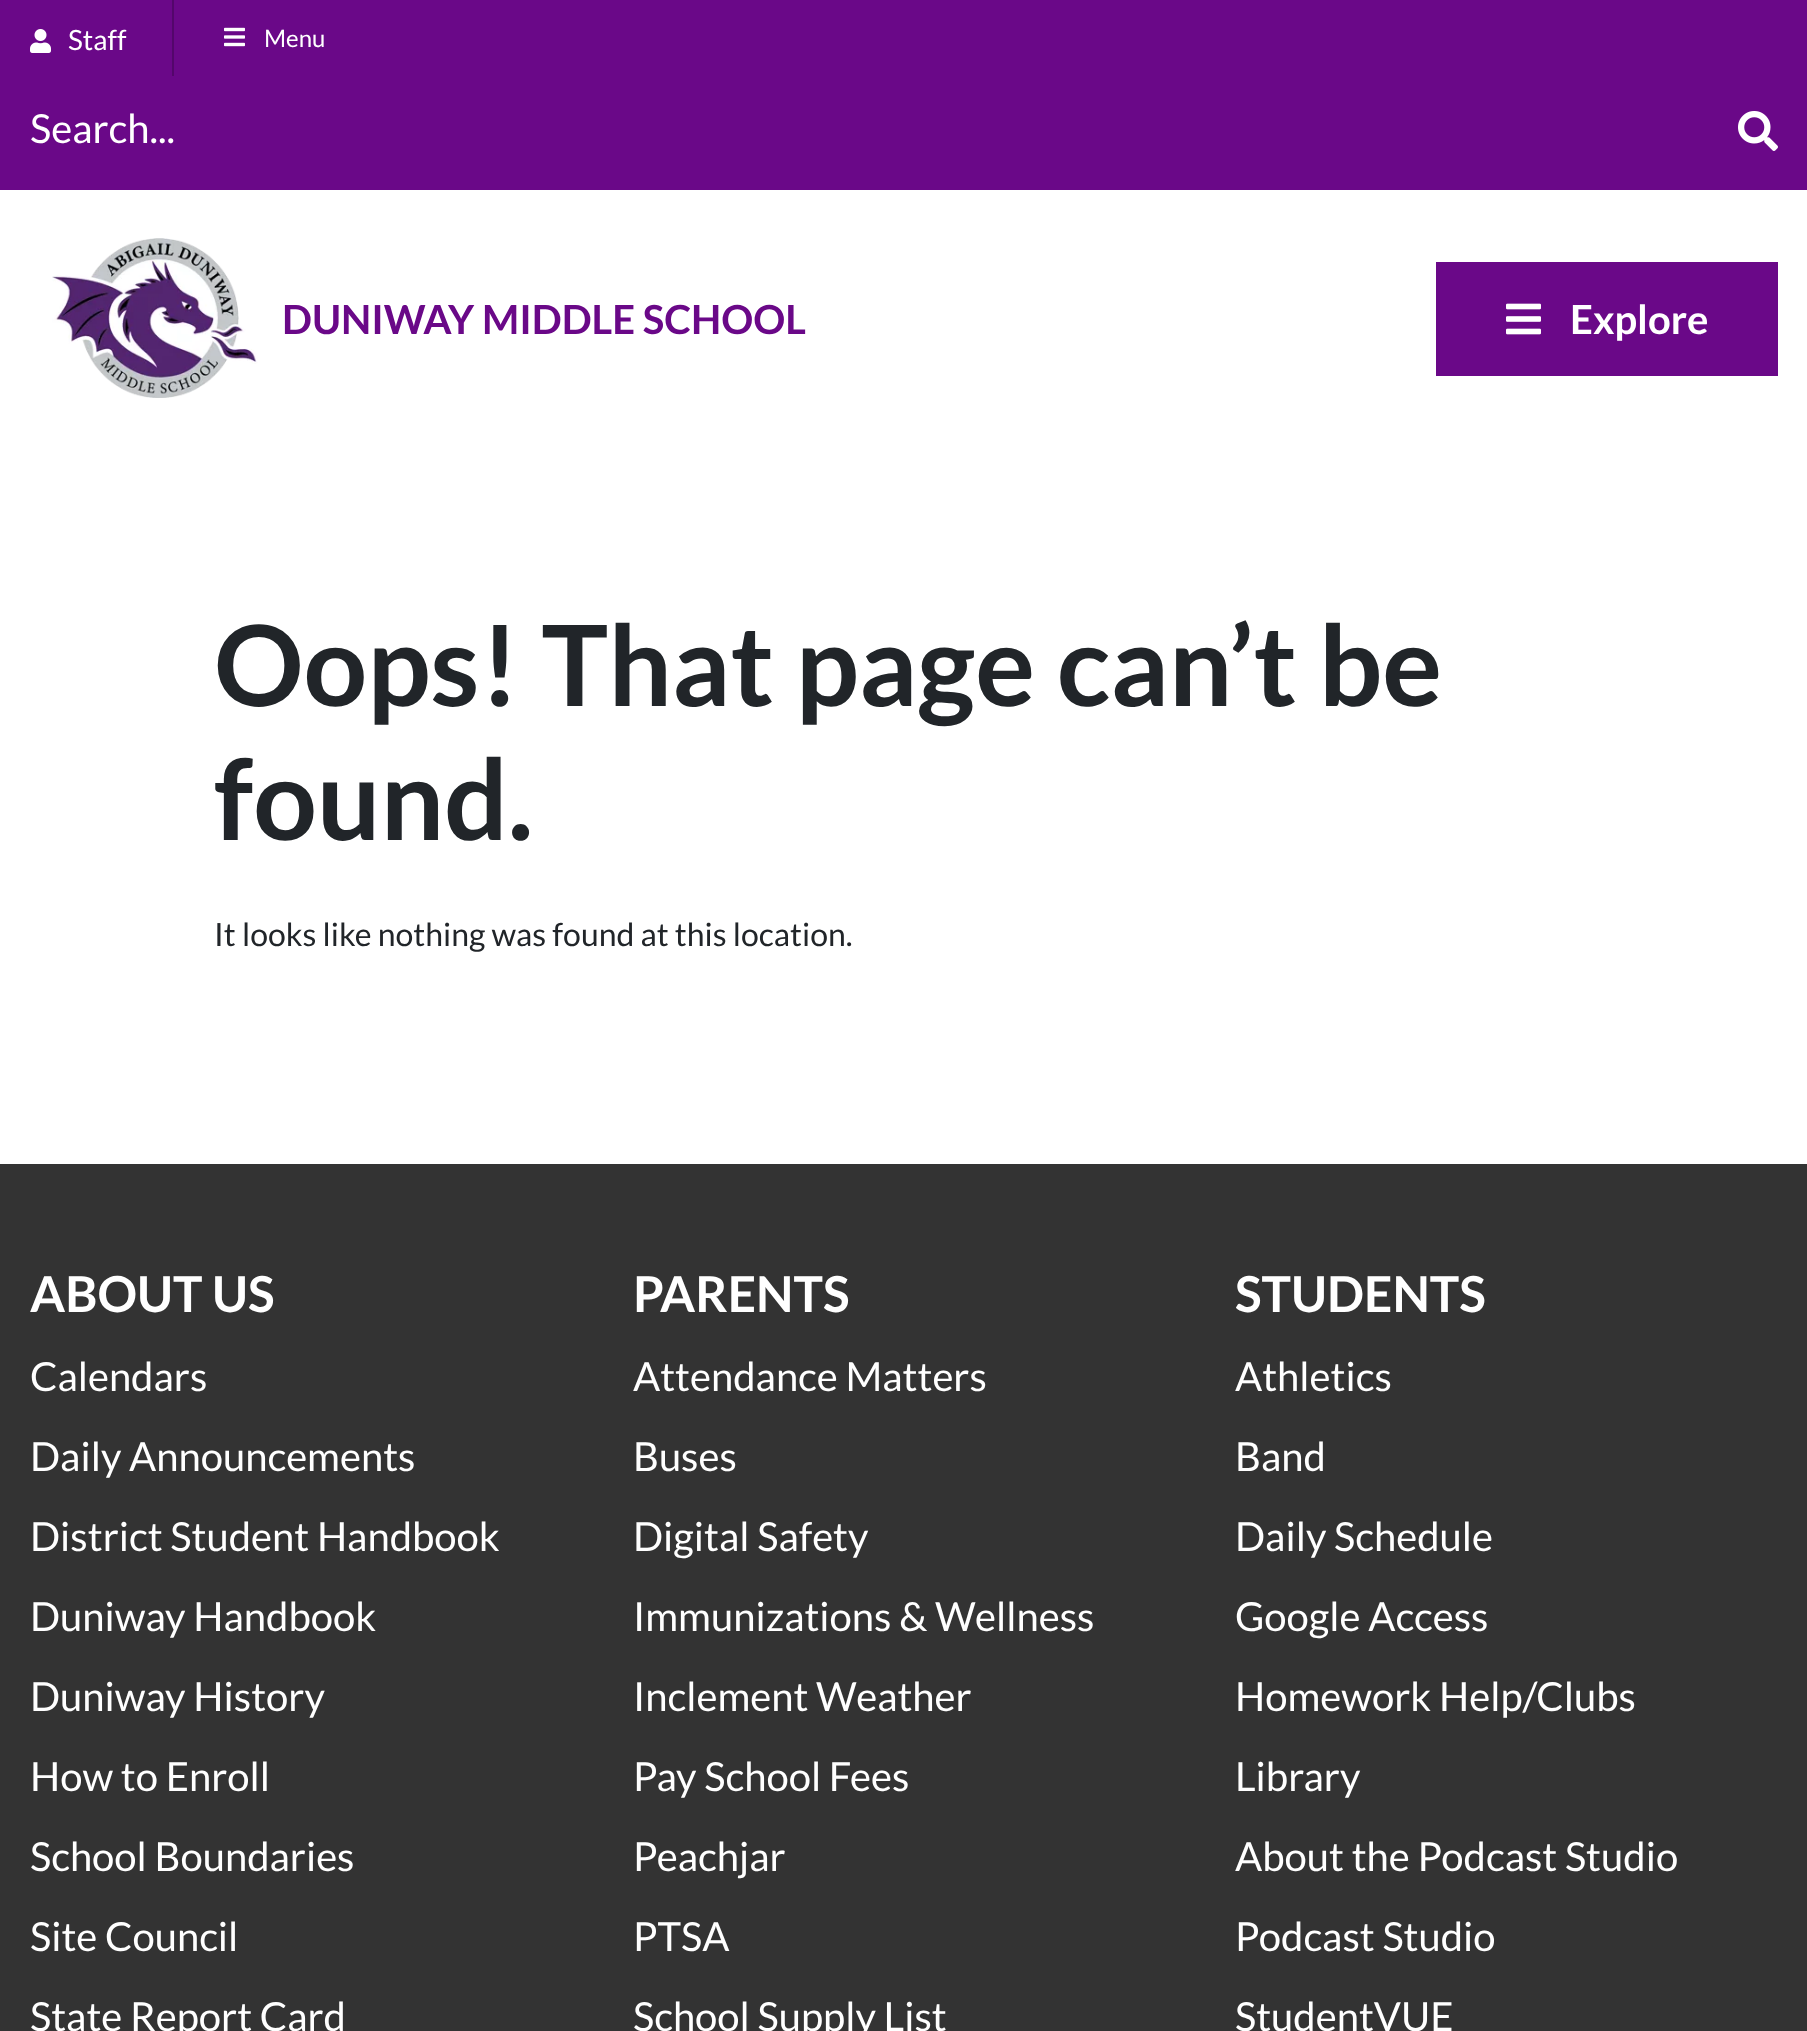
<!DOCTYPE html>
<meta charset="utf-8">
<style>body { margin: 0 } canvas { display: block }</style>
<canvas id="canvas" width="1807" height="2031"></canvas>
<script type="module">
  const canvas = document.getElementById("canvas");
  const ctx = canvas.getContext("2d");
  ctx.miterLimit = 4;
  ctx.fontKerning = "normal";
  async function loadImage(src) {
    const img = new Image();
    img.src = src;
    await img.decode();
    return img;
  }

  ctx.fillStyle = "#ffffff";
  ctx.fillRect(0, 0, 1807, 2031);
  ctx.fillStyle = "#6a0888";
  ctx.fillRect(0, 0, 1807, 190);
  ctx.fillStyle = "#53066b";
  ctx.fillRect(172, 0, 2, 76);
  ctx.drawImage(await loadImage("img1.png"), 30, 29, 21, 24);
  ctx.font = "28px Lato";
  ctx.fillStyle = "#ffffff";
  ctx.fillText("Staff", 68, 50);
  ctx.drawImage(await loadImage("img2.png"), 224, 27, 21, 20);
  ctx.font = "24px Lato";
  ctx.fillText("Menu", 264, 47);
  ctx.font = "40px Lato";
  ctx.fillText("Search...", 30, 143);
  ctx.drawImage(await loadImage("img3.png"), 1738, 111, 40, 40);
  ctx.drawImage(await loadImage("img4.png"), 52, 238, 206, 160);
  ctx.font = "bold 40px Lato";
  ctx.fillStyle = "#6a0888";
  ctx.fillText("DUNIWAY MIDDLE SCHOOL", 282, 334);
  ctx.fillRect(1436, 262, 342, 114);
  ctx.drawImage(await loadImage("img5.png"), 1506, 303, 35, 32);
  ctx.fillStyle = "#ffffff";
  ctx.fillText("Explore", 1570, 334);
  ctx.font = "bold 112px Lato";
  ctx.fillStyle = "#212529";
  ctx.fillText("Oops! That page can’t be", 214, 706);
  ctx.fillText("found.", 214, 840);
  ctx.font = "32px Lato";
  ctx.fillText("It looks like nothing was found at this location.", 214, 946);
  ctx.fillStyle = "#333333";
  ctx.fillRect(0, 1164, 1807, 867);
  ctx.font = "bold 49.5px Lato";
  ctx.fillStyle = "#ffffff";
  ctx.fillText("ABOUT US", 30, 1312);
  ctx.font = "40px Lato";
  ctx.fillText("Calendars", 30, 1391);
  ctx.fillText("Daily Announcements", 30, 1471);
  ctx.fillText("District Student Handbook", 30, 1551);
  ctx.fillText("Duniway Handbook", 30, 1631);
  ctx.fillText("Duniway History", 30, 1711);
  ctx.fillText("How to Enroll", 30, 1791);
  ctx.fillText("School Boundaries", 30, 1871);
  ctx.fillText("Site Council", 30, 1951);
  ctx.fillText("State Report Card", 30, 2031);
  ctx.font = "bold 49.5px Lato";
  ctx.fillText("PARENTS", 633, 1312);
  ctx.font = "40px Lato";
  ctx.fillText("Attendance Matters", 633, 1391);
  ctx.fillText("Buses", 633, 1471);
  ctx.fillText("Digital Safety", 633, 1551);
  ctx.fillText("Immunizations & Wellness", 633, 1631);
  ctx.fillText("Inclement Weather", 633, 1711);
  ctx.fillText("Pay School Fees", 633, 1791);
  ctx.fillText("Peachjar", 633, 1871);
  ctx.fillText("PTSA", 633, 1951);
  ctx.fillText("School Supply List", 633, 2031);
  ctx.font = "bold 49.5px Lato";
  ctx.fillText("STUDENTS", 1235, 1312);
  ctx.font = "40px Lato";
  ctx.fillText("Athletics", 1235, 1391);
  ctx.fillText("Band", 1235, 1471);
  ctx.fillText("Daily Schedule", 1235, 1551);
  ctx.fillText("Google Access", 1235, 1631);
  ctx.fillText("Homework Help/Clubs", 1235, 1711);
  ctx.fillText("Library", 1235, 1791);
  ctx.fillText("About the Podcast Studio", 1235, 1871);
  ctx.fillText("Podcast Studio", 1235, 1951);
  ctx.fillText("StudentVUE", 1235, 2031);
</script>
